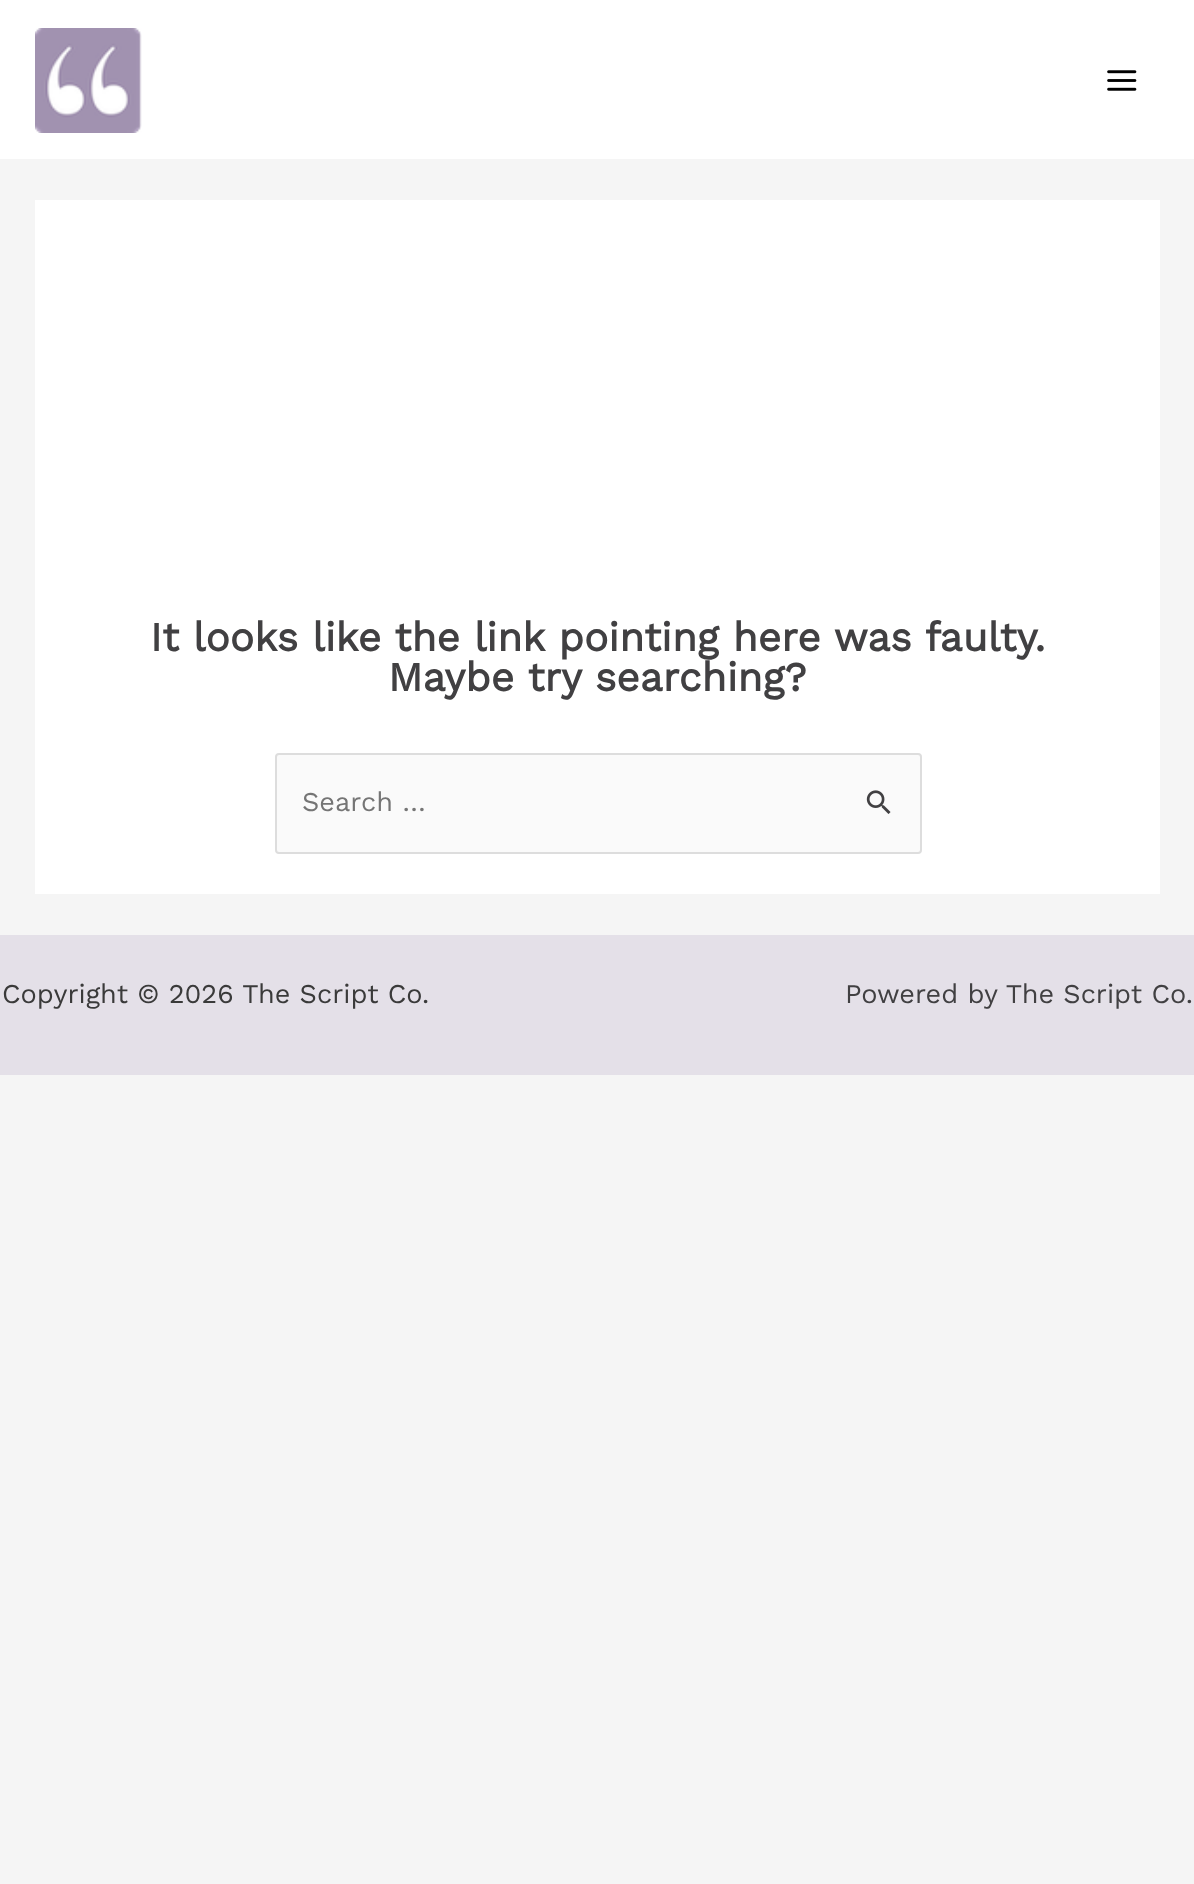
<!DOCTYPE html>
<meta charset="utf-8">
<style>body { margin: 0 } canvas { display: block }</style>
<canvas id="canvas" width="1194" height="1884"></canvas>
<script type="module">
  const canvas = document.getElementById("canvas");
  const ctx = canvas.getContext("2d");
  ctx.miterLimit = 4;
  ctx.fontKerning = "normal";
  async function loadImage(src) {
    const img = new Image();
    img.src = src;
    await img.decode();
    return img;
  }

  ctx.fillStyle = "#f5f5f5";
  ctx.fillRect(0, 0, 1194, 1884);
  ctx.fillStyle = "#ffffff";
  ctx.fillRect(0, 0, 1194, 159);
  ctx.drawImage(await loadImage("img1.png"), 35, 28, 107, 105);
  ctx.drawImage(await loadImage("img2.png"), 1107, 70, 30, 21);
  ctx.fillRect(35, 200, 1125, 694);
  ctx.font = "bold 40.7px Work Sans";
  ctx.fillStyle = "#414042";
  ctx.fillText("It looks like the link pointing here was faulty.", 150, 651);
  ctx.fillText("Maybe try searching?", 388, 691);
  ctx.fillStyle = "#fafafa";
  ctx.beginPath();
  ctx.roundRect(276, 754, 645, 99, 3);
  ctx.fill();
  ctx.strokeStyle = "#dddddd";
  ctx.lineWidth = 2;
  ctx.stroke();
  ctx.font = "27.1px Work Sans";
  ctx.fillStyle = "#757575";
  ctx.fillText("Search …", 302, 811);
  ctx.drawImage(await loadImage("img3.png"), 866, 790, 25, 24);
  ctx.fillStyle = "#e4e0e8";
  ctx.fillRect(0, 935, 1194, 140);
  ctx.fillStyle = "#3a3a3a";
  ctx.fillText("Copyright © 2026 The Script Co.", 2, 1003);
  ctx.fillStyle = "#414042";
  ctx.fillText("Powered by The Script Co.", 845, 1003);
</script>
